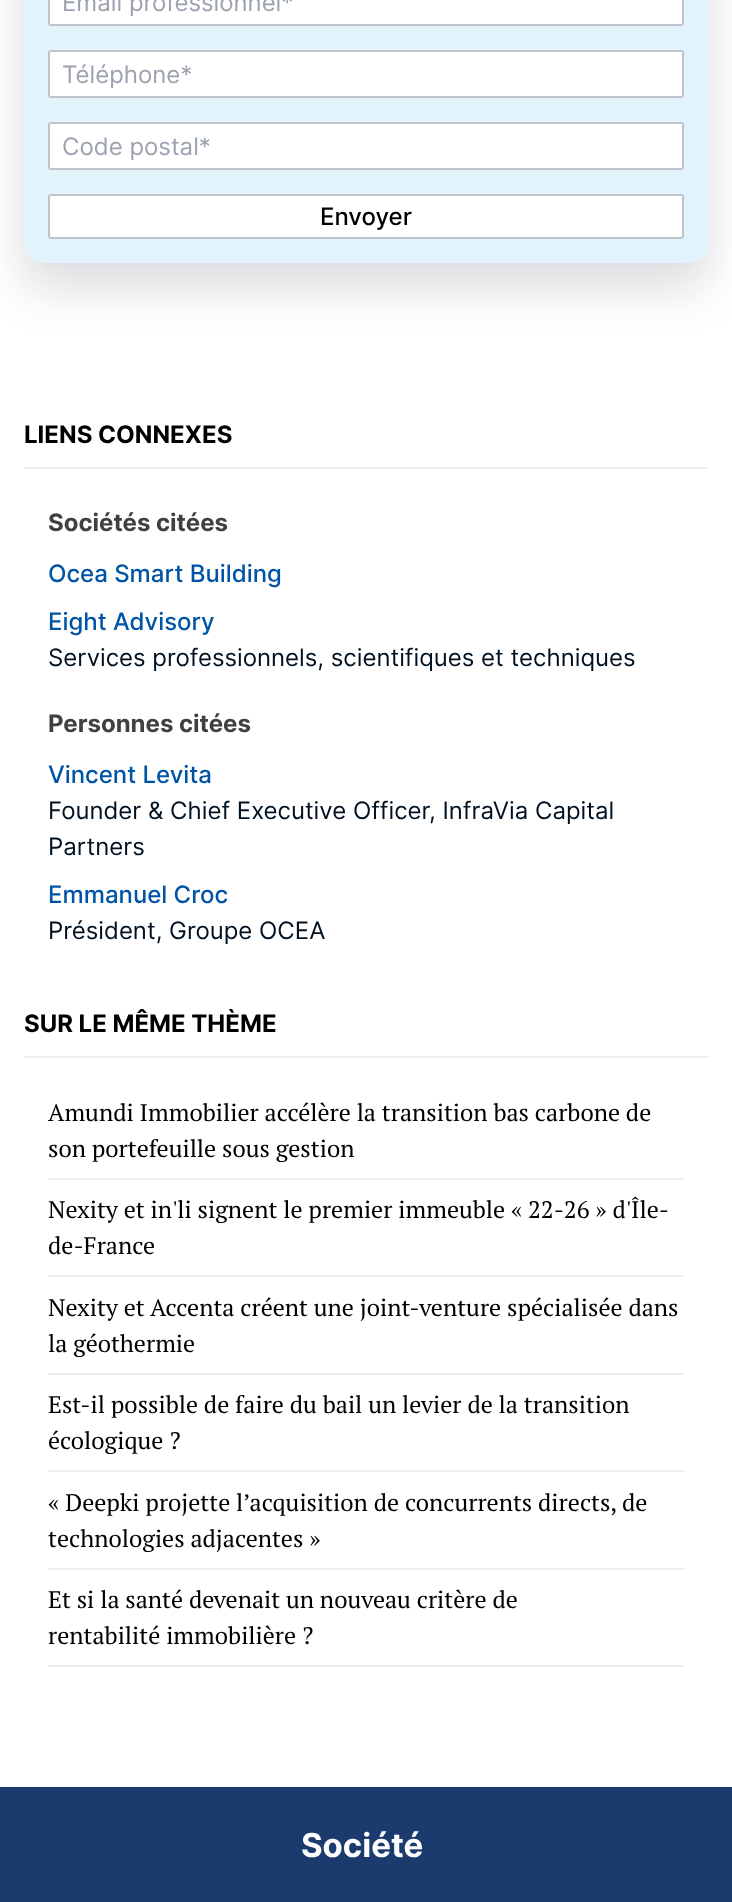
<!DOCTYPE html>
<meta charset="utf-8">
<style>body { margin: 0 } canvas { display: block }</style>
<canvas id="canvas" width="732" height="1902"></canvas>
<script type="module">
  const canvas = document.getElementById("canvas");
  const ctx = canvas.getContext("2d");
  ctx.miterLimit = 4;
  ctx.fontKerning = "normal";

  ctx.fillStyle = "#ffffff";
  ctx.fillRect(0, 0, 732, 1902);
  ctx.fillStyle = "rgba(22, 34, 51, 0.16)";
  ctx.filter = "blur(24px)";
  ctx.beginPath();
  ctx.roundRect(24, -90, 684, 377, 18);
  ctx.fill();
  ctx.filter = "none";
  ctx.fillStyle = "#e3f3fc";
  ctx.beginPath();
  ctx.roundRect(24, -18, 684, 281, 18);
  ctx.fill();
  ctx.fillStyle = "#ffffff";
  ctx.beginPath();
  ctx.roundRect(49, -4, 634, 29, 2);
  ctx.fill();
  ctx.strokeStyle = "#bfc4c8";
  ctx.lineWidth = 2;
  ctx.stroke();
  ctx.font = "24px Inter";
  ctx.fillStyle = "#9ca3af";
  ctx.fillText("Email professionnel*", 62, 11);
  ctx.fillStyle = "#ffffff";
  ctx.beginPath();
  ctx.roundRect(49, 51, 634, 46, 2);
  ctx.fill();
  ctx.stroke();
  ctx.fillStyle = "#9ca3af";
  ctx.fillText("Téléphone*", 62, 83);
  ctx.fillStyle = "#ffffff";
  ctx.beginPath();
  ctx.roundRect(49, 123, 634, 46, 2);
  ctx.fill();
  ctx.stroke();
  ctx.fillStyle = "#9ca3af";
  ctx.fillText("Code postal*", 62, 155);
  ctx.fillStyle = "#ffffff";
  ctx.beginPath();
  ctx.roundRect(49, 195, 634, 43, 2);
  ctx.fill();
  ctx.stroke();
  ctx.font = "500 24px Inter";
  ctx.fillStyle = "#000000";
  ctx.fillText("Envoyer", 320, 225);
  ctx.font = "bold 24px Inter";
  ctx.fillText("LIENS CONNEXES", 24, 443);
  ctx.fillStyle = "#ecedef";
  ctx.fillRect(24, 467, 684, 2);
  ctx.fillStyle = "#404040";
  ctx.fillText("Sociétés citées", 48, 531);
  ctx.font = "500 24px Inter";
  ctx.fillStyle = "#0054a6";
  ctx.fillText("Ocea Smart Building", 48, 582);
  ctx.fillText("Eight Advisory", 48, 630);
  ctx.font = "24px Inter";
  ctx.fillStyle = "#001122";
  ctx.fillText("Services professionnels, scientifiques et techniques", 48, 666);
  ctx.font = "bold 24px Inter";
  ctx.fillStyle = "#404040";
  ctx.fillText("Personnes citées", 48, 732);
  ctx.font = "500 24px Inter";
  ctx.fillStyle = "#0054a6";
  ctx.fillText("Vincent Levita", 48, 783);
  ctx.font = "24px Inter";
  ctx.fillStyle = "#001122";
  ctx.fillText("Founder & Chief Executive Officer, InfraVia Capital", 48, 819);
  ctx.fillText("Partners", 48, 855);
  ctx.font = "500 24px Inter";
  ctx.fillStyle = "#0054a6";
  ctx.fillText("Emmanuel Croc", 48, 903);
  ctx.font = "24px Inter";
  ctx.fillStyle = "#001122";
  ctx.fillText("Président, Groupe OCEA", 48, 939);
  ctx.font = "bold 24px Inter";
  ctx.fillStyle = "#000000";
  ctx.fillText("SUR LE MÊME THÈME", 24, 1032);
  ctx.fillStyle = "#ecedef";
  ctx.fillRect(24, 1056, 684, 2);
  ctx.font = "24px PT Serif";
  ctx.fillStyle = "#000000";
  ctx.fillText("Amundi Immobilier accélère la transition bas carbone de", 48, 1121);
  ctx.fillText("son portefeuille sous gestion", 48, 1157);
  ctx.fillStyle = "#ecedef";
  ctx.fillRect(48, 1178, 636, 2);
  ctx.fillStyle = "#000000";
  ctx.fillText("Nexity et in'li signent le premier immeuble « 22-26 » d'Île-", 48, 1218);
  ctx.fillText("de-France", 48, 1254);
  ctx.fillStyle = "#ecedef";
  ctx.fillRect(48, 1275, 636, 2);
  ctx.fillStyle = "#000000";
  ctx.fillText("Nexity et Accenta créent une joint-venture spécialisée dans", 48, 1316);
  ctx.fillText("la géothermie", 48, 1352);
  ctx.fillStyle = "#ecedef";
  ctx.fillRect(48, 1373, 636, 2);
  ctx.fillStyle = "#000000";
  ctx.fillText("Est-il possible de faire du bail un levier de la transition", 48, 1413);
  ctx.fillText("écologique ?", 48, 1449);
  ctx.fillStyle = "#ecedef";
  ctx.fillRect(48, 1470, 636, 2);
  ctx.fillStyle = "#000000";
  ctx.fillText("« Deepki projette l’acquisition de concurrents directs, de", 48, 1511);
  ctx.fillText("technologies adjacentes »", 48, 1547);
  ctx.fillStyle = "#ecedef";
  ctx.fillRect(48, 1568, 636, 2);
  ctx.fillStyle = "#000000";
  ctx.fillText("Et si la santé devenait un nouveau critère de", 48, 1608);
  ctx.fillText("rentabilité immobilière ?", 48, 1644);
  ctx.fillStyle = "#ecedef";
  ctx.fillRect(48, 1665, 636, 2);
  ctx.fillStyle = "#1b3a6e";
  ctx.fillRect(0, 1787, 732, 115);
  ctx.font = "bold 33px Inter";
  ctx.fillStyle = "#ffffff";
  ctx.fillText("Société", 301, 1857);
</script>
